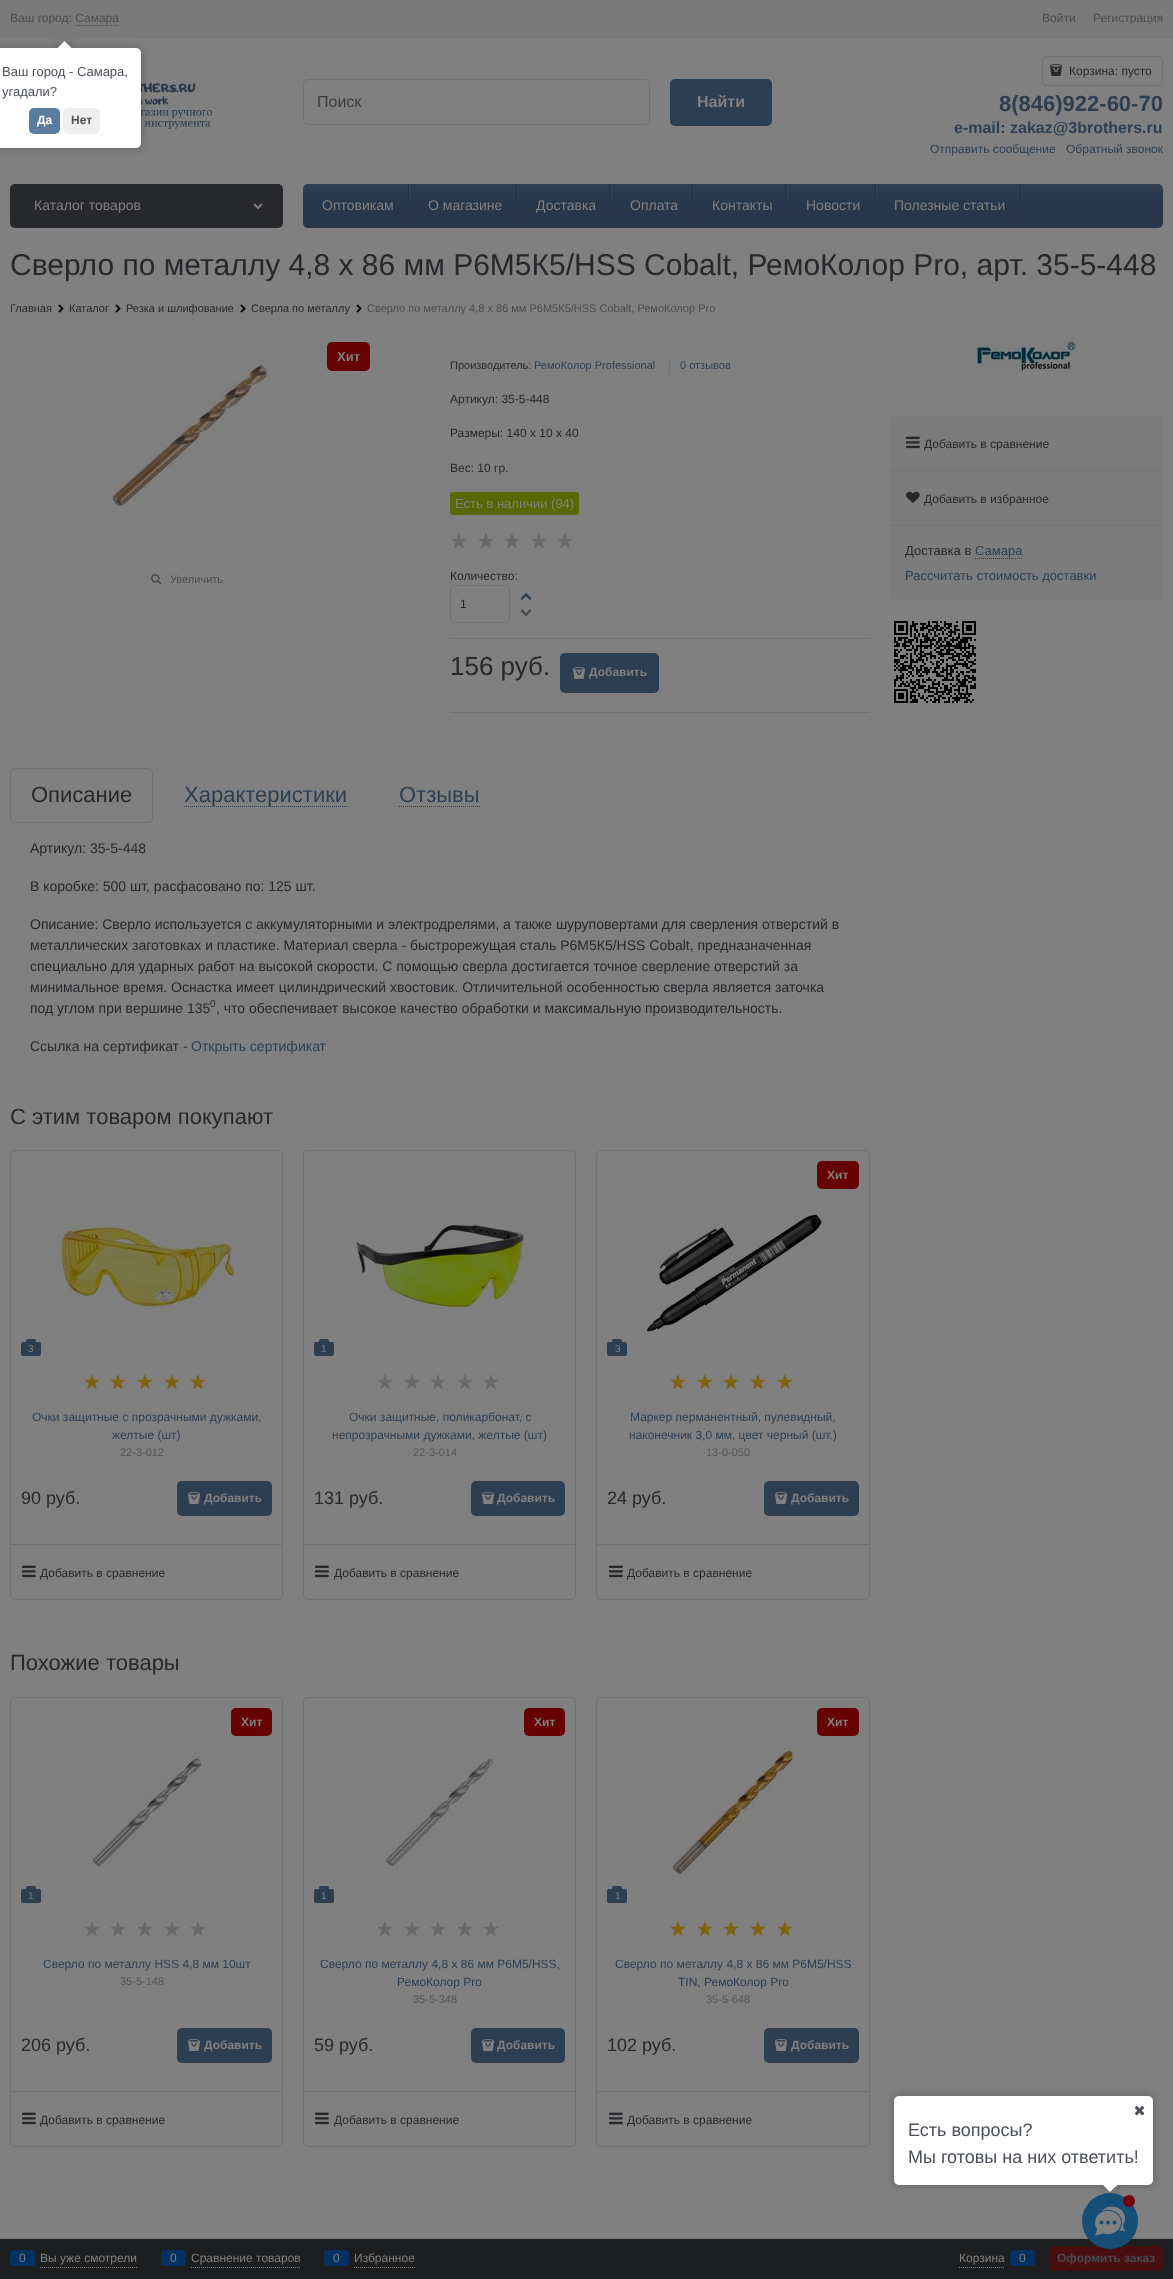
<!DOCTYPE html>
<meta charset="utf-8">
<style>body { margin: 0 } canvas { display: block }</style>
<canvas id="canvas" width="1173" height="2279"></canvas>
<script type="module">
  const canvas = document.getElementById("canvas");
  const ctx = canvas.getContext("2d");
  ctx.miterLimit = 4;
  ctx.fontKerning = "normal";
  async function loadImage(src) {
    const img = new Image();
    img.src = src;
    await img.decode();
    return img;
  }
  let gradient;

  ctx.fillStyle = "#808080";
  ctx.fillRect(0, 0, 1173, 2279);
  ctx.fillStyle = "#7a7a7a";
  ctx.fillRect(0, 0, 1173, 39);
  ctx.font = "12px Liberation Sans";
  ctx.fillStyle = "#4a4b4e";
  ctx.fillText("Ваш город: Самара", 10, 22);
  ctx.beginPath();
  ctx.moveTo(75, 25.5);
  ctx.lineTo(119, 25.5);
  ctx.strokeStyle = "#4a4b4e";
  ctx.setLineDash([1, 1]);
  ctx.stroke();
  ctx.fillText("Войти", 1042, 22);
  ctx.fillText("Регистрация", 1093, 22);
  ctx.drawImage(await loadImage("img1.png"), 141, 78, 72, 51);
  ctx.beginPath();
  ctx.roundRect(303.5, 79.5, 346, 45, 4.5);
  ctx.strokeStyle = "#717272";
  ctx.setLineDash([]);
  ctx.stroke();
  ctx.font = "16px Liberation Sans";
  ctx.fillStyle = "#3b3b3b";
  ctx.fillText("Поиск", 317, 107);
  ctx.fillStyle = "#2d3e51";
  ctx.beginPath();
  ctx.roundRect(670, 79, 102, 47, 5);
  ctx.fill();
  ctx.font = "bold 16px Liberation Sans";
  ctx.fillStyle = "#808080";
  ctx.fillText("Найти", 697, 107);
  ctx.beginPath();
  ctx.roundRect(1042.5, 56.5, 120, 29, 4.5);
  ctx.stroke();
  ctx.drawImage(await loadImage("img2.png"), 1050, 64, 12, 12);
  ctx.font = "12px Liberation Sans";
  ctx.fillStyle = "#26282c";
  ctx.fillText("Корзина: пусто", 1069, 75);
  ctx.font = "bold 22px Liberation Sans";
  ctx.fillStyle = "#2d3e51";
  ctx.fillText("8(846)922-60-70", 999, 111);
  ctx.font = "bold 16px Liberation Sans";
  ctx.fillText("e-mail: zakaz@3brothers.ru", 954, 133);
  ctx.font = "12px Liberation Sans";
  ctx.fillText("Отправить сообщение", 930, 153);
  ctx.fillText("Обратный звонок", 1066, 153);
  ctx.fillStyle = "#26282c";
  ctx.beginPath();
  ctx.roundRect(10, 184, 273, 44, 5);
  ctx.fill();
  ctx.font = "14px Liberation Sans";
  ctx.fillStyle = "#808080";
  ctx.fillText("Каталог товаров", 34, 210);
  ctx.drawImage(await loadImage("img3.png"), 253, 203, 10, 7);
  gradient = ctx.createLinearGradient(733, 184, 733, 228);
  gradient.addColorStop(0, "#2d3e51");
  gradient.addColorStop(0.5, "#273749");
  ctx.fillStyle = gradient;
  ctx.beginPath();
  ctx.roundRect(303, 184, 860, 44, 5);
  ctx.fill();
  ctx.fillStyle = "#808080";
  ctx.fillText("Оптовикам", 322, 210);
  gradient = ctx.createLinearGradient(410, 184, 410, 228);
  gradient.addColorStop(0, "rgba(128, 128, 128, 0.14)");
  gradient.addColorStop(0.72, "rgba(128, 128, 128, 0.02)");
  gradient.addColorStop(1, "rgba(128, 128, 128, 0)");
  ctx.fillStyle = gradient;
  ctx.fillRect(409, 184, 1, 31);
  gradient = ctx.createLinearGradient(409, 184, 409, 228);
  gradient.addColorStop(0, "rgba(29, 29, 29, 0.39)");
  gradient.addColorStop(0.17, "rgba(29, 29, 29, 0.33)");
  gradient.addColorStop(0.61, "rgba(29, 29, 29, 0.12)");
  gradient.addColorStop(0.96, "rgba(29, 29, 29, 0.01)");
  gradient.addColorStop(0.98, "rgba(128, 128, 128, 0.01)");
  gradient.addColorStop(1, "rgba(128, 128, 128, 0)");
  ctx.fillStyle = gradient;
  ctx.fillRect(408, 184, 1, 44);
  ctx.fillStyle = "#808080";
  ctx.fillText("О магазине", 428, 210);
  gradient = ctx.createLinearGradient(518, 184, 518, 228);
  gradient.addColorStop(0, "rgba(128, 128, 128, 0.14)");
  gradient.addColorStop(0.72, "rgba(128, 128, 128, 0.02)");
  gradient.addColorStop(1, "rgba(128, 128, 128, 0)");
  ctx.fillStyle = gradient;
  ctx.fillRect(517, 184, 1, 31);
  gradient = ctx.createLinearGradient(517, 184, 517, 228);
  gradient.addColorStop(0, "rgba(29, 29, 29, 0.39)");
  gradient.addColorStop(0.17, "rgba(29, 29, 29, 0.33)");
  gradient.addColorStop(0.61, "rgba(29, 29, 29, 0.12)");
  gradient.addColorStop(0.96, "rgba(29, 29, 29, 0.01)");
  gradient.addColorStop(0.98, "rgba(128, 128, 128, 0.01)");
  gradient.addColorStop(1, "rgba(128, 128, 128, 0)");
  ctx.fillStyle = gradient;
  ctx.fillRect(516, 184, 1, 44);
  ctx.fillStyle = "#808080";
  ctx.fillText("Доставка", 536, 210);
  gradient = ctx.createLinearGradient(612, 184, 612, 228);
  gradient.addColorStop(0, "rgba(128, 128, 128, 0.14)");
  gradient.addColorStop(0.72, "rgba(128, 128, 128, 0.02)");
  gradient.addColorStop(1, "rgba(128, 128, 128, 0)");
  ctx.fillStyle = gradient;
  ctx.fillRect(611, 184, 1, 31);
  gradient = ctx.createLinearGradient(611, 184, 611, 228);
  gradient.addColorStop(0, "rgba(29, 29, 29, 0.39)");
  gradient.addColorStop(0.17, "rgba(29, 29, 29, 0.33)");
  gradient.addColorStop(0.61, "rgba(29, 29, 29, 0.12)");
  gradient.addColorStop(0.96, "rgba(29, 29, 29, 0.01)");
  gradient.addColorStop(0.98, "rgba(128, 128, 128, 0.01)");
  gradient.addColorStop(1, "rgba(128, 128, 128, 0)");
  ctx.fillStyle = gradient;
  ctx.fillRect(610, 184, 1, 44);
  ctx.fillStyle = "#808080";
  ctx.fillText("Оплата", 630, 210);
  gradient = ctx.createLinearGradient(694, 184, 694, 228);
  gradient.addColorStop(0, "rgba(128, 128, 128, 0.14)");
  gradient.addColorStop(0.72, "rgba(128, 128, 128, 0.02)");
  gradient.addColorStop(1, "rgba(128, 128, 128, 0)");
  ctx.fillStyle = gradient;
  ctx.fillRect(693, 184, 1, 31);
  gradient = ctx.createLinearGradient(693, 184, 693, 228);
  gradient.addColorStop(0, "rgba(29, 29, 29, 0.39)");
  gradient.addColorStop(0.17, "rgba(29, 29, 29, 0.33)");
  gradient.addColorStop(0.61, "rgba(29, 29, 29, 0.12)");
  gradient.addColorStop(0.96, "rgba(29, 29, 29, 0.01)");
  gradient.addColorStop(0.98, "rgba(128, 128, 128, 0.01)");
  gradient.addColorStop(1, "rgba(128, 128, 128, 0)");
  ctx.fillStyle = gradient;
  ctx.fillRect(692, 184, 1, 44);
  ctx.fillStyle = "#808080";
  ctx.fillText("Контакты", 712, 210);
  gradient = ctx.createLinearGradient(788, 184, 788, 228);
  gradient.addColorStop(0, "rgba(128, 128, 128, 0.14)");
  gradient.addColorStop(0.72, "rgba(128, 128, 128, 0.02)");
  gradient.addColorStop(1, "rgba(128, 128, 128, 0)");
  ctx.fillStyle = gradient;
  ctx.fillRect(787, 184, 1, 31);
  gradient = ctx.createLinearGradient(787, 184, 787, 228);
  gradient.addColorStop(0, "rgba(29, 29, 29, 0.39)");
  gradient.addColorStop(0.17, "rgba(29, 29, 29, 0.33)");
  gradient.addColorStop(0.61, "rgba(29, 29, 29, 0.12)");
  gradient.addColorStop(0.96, "rgba(29, 29, 29, 0.01)");
  gradient.addColorStop(0.98, "rgba(128, 128, 128, 0.01)");
  gradient.addColorStop(1, "rgba(128, 128, 128, 0)");
  ctx.fillStyle = gradient;
  ctx.fillRect(786, 184, 1, 44);
  ctx.fillStyle = "#808080";
  ctx.fillText("Новости", 806, 210);
  gradient = ctx.createLinearGradient(877, 184, 877, 228);
  gradient.addColorStop(0, "rgba(128, 128, 128, 0.14)");
  gradient.addColorStop(0.72, "rgba(128, 128, 128, 0.02)");
  gradient.addColorStop(1, "rgba(128, 128, 128, 0)");
  ctx.fillStyle = gradient;
  ctx.fillRect(876, 184, 1, 31);
  gradient = ctx.createLinearGradient(876, 184, 876, 228);
  gradient.addColorStop(0, "rgba(29, 29, 29, 0.39)");
  gradient.addColorStop(0.17, "rgba(29, 29, 29, 0.33)");
  gradient.addColorStop(0.61, "rgba(29, 29, 29, 0.12)");
  gradient.addColorStop(0.96, "rgba(29, 29, 29, 0.01)");
  gradient.addColorStop(0.98, "rgba(128, 128, 128, 0.01)");
  gradient.addColorStop(1, "rgba(128, 128, 128, 0)");
  ctx.fillStyle = gradient;
  ctx.fillRect(875, 184, 1, 44);
  ctx.fillStyle = "#808080";
  ctx.fillText("Полезные статьи", 894, 210);
  gradient = ctx.createLinearGradient(1022, 184, 1022, 228);
  gradient.addColorStop(0, "rgba(128, 128, 128, 0.14)");
  gradient.addColorStop(0.72, "rgba(128, 128, 128, 0.02)");
  gradient.addColorStop(1, "rgba(128, 128, 128, 0)");
  ctx.fillStyle = gradient;
  ctx.fillRect(1021, 184, 1, 31);
  gradient = ctx.createLinearGradient(1021, 184, 1021, 228);
  gradient.addColorStop(0, "rgba(29, 29, 29, 0.39)");
  gradient.addColorStop(0.17, "rgba(29, 29, 29, 0.33)");
  gradient.addColorStop(0.61, "rgba(29, 29, 29, 0.12)");
  gradient.addColorStop(0.96, "rgba(29, 29, 29, 0.01)");
  gradient.addColorStop(0.98, "rgba(128, 128, 128, 0.01)");
  gradient.addColorStop(1, "rgba(128, 128, 128, 0)");
  ctx.fillStyle = gradient;
  ctx.fillRect(1020, 184, 1, 44);
  ctx.font = "30px Liberation Sans";
  ctx.fillStyle = "#26282c";
  ctx.fillText("Сверло по металлу 4,8 х 86 мм Р6М5К5/HSS Cobalt, РемоКолор Pro, арт. 35-5-448", 10, 275);
  ctx.font = "11px Liberation Sans";
  ctx.fillText("Главная", 10, 312);
  ctx.drawImage(await loadImage("img4.png"), 58, 304, 6, 9);
  ctx.fillText("Каталог", 69, 312);
  ctx.drawImage(await loadImage("img4.png"), 115, 304, 6, 9);
  ctx.fillText("Резка и шлифование", 126, 312);
  ctx.drawImage(await loadImage("img4.png"), 240, 304, 6, 9);
  ctx.fillText("Сверла по металлу", 251, 312);
  ctx.drawImage(await loadImage("img4.png"), 356, 304, 6, 9);
  ctx.fillStyle = "#4a4b4e";
  ctx.fillText("Сверло по металлу 4,8 х 86 мм Р6М5К5/HSS Cobalt, РемоКолор Pro", 367, 312);
  ctx.fillStyle = "#670202";
  ctx.beginPath();
  ctx.roundRect(327, 342, 43, 29, 5);
  ctx.fill();
  ctx.font = "bold 13px Liberation Sans";
  ctx.fillStyle = "#808080";
  ctx.fillText("Хит", 337, 361);
  ctx.drawImage(await loadImage("img5.png"), 112, 358, 161, 152);
  ctx.drawImage(await loadImage("img6.png"), 151, 573, 11, 12);
  ctx.font = "11px Liberation Sans";
  ctx.fillStyle = "#4a4b4e";
  ctx.fillText("Увеличить", 170, 583);
  ctx.fillStyle = "#26282c";
  ctx.fillText("Производитель:", 450, 369);
  ctx.fillStyle = "#2d3e51";
  ctx.fillText("РемоКолор Professional", 534, 369);
  ctx.fillStyle = "#717272";
  ctx.fillRect(669, 357, 1, 17);
  ctx.fillStyle = "#2d3e51";
  ctx.fillText("0 отзывов", 680, 369);
  ctx.font = "12px Liberation Sans";
  ctx.fillStyle = "#26282c";
  ctx.fillText("Артикул: 35-5-448", 450, 403);
  ctx.fillText("Размеры: 140 x 10 x 40", 450, 437);
  ctx.fillText("Вес: 10 гр.", 450, 472);
  ctx.fillStyle = "#596702";
  ctx.beginPath();
  ctx.roundRect(450, 492, 129, 23, 3);
  ctx.fill();
  ctx.font = "13px Liberation Sans";
  ctx.fillStyle = "#808080";
  ctx.fillText("Есть в наличии (94)", 455, 508);
  ctx.drawImage(await loadImage("img7.png"), 451, 533, 16, 16);
  ctx.drawImage(await loadImage("img7.png"), 478, 533, 16, 16);
  ctx.drawImage(await loadImage("img7.png"), 504, 533, 16, 16);
  ctx.drawImage(await loadImage("img7.png"), 531, 533, 16, 16);
  ctx.drawImage(await loadImage("img7.png"), 557, 533, 16, 16);
  ctx.font = "12px Liberation Sans";
  ctx.fillStyle = "#26282c";
  ctx.fillText("Количество:", 450, 580);
  ctx.beginPath();
  ctx.roundRect(450.5, 585.5, 59, 37, 4.5);
  ctx.stroke();
  ctx.fillText("1", 460, 608);
  ctx.drawImage(await loadImage("img8.png"), 520, 593, 12, 7);
  ctx.drawImage(await loadImage("img9.png"), 520, 609, 12, 8);
  ctx.fillStyle = "#717272";
  ctx.fillRect(450, 638, 420, 1);
  ctx.fillRect(450, 712, 420, 1);
  ctx.font = "26px Liberation Sans";
  ctx.fillStyle = "#26282c";
  ctx.fillText("156 руб.", 450, 675);
  ctx.fillStyle = "#2d3e51";
  ctx.beginPath();
  ctx.roundRect(560, 653, 99, 40, 5);
  ctx.fill();
  ctx.drawImage(await loadImage("img10.png"), 573, 667, 12, 12);
  ctx.font = "bold 12px Liberation Sans";
  ctx.fillStyle = "#808080";
  ctx.fillText("Добавить", 589, 676);
  ctx.beginPath();
  ctx.roundRect(10.5, 768.5, 142, 54, 4.5);
  ctx.stroke();
  ctx.font = "22px Liberation Sans";
  ctx.fillStyle = "#26282c";
  ctx.fillText("Описание", 31, 802);
  ctx.beginPath();
  ctx.moveTo(184, 806.5);
  ctx.lineTo(347, 806.5);
  ctx.strokeStyle = "#2d3e51";
  ctx.setLineDash([1, 1]);
  ctx.stroke();
  ctx.fillStyle = "#2d3e51";
  ctx.fillText("Характеристики", 184, 802);
  ctx.beginPath();
  ctx.moveTo(399, 806.5);
  ctx.lineTo(480, 806.5);
  ctx.stroke();
  ctx.fillText("Отзывы", 399, 802);
  ctx.font = "14px Liberation Sans";
  ctx.fillStyle = "#26282c";
  ctx.fillText("Артикул: 35-5-448", 30, 853);
  ctx.fillText("В коробке: 500 шт, расфасовано по: 125 шт.", 30, 891);
  ctx.fillText("Описание: Сверло используется с аккумуляторными и электродрелями, а также шуруповертами для сверления отверстий в", 30, 929);
  ctx.fillText("металлических заготовках и пластике. Материал сверла - быстрорежущая сталь Р6М5К5/HSS Cobalt, предназначенная", 30, 950);
  ctx.fillText("специально для ударных работ на высокой скорости. С помощью сверла достигается точное сверление отверстий за", 30, 971);
  ctx.fillText("минимальное время. Оснастка имеет цилиндрический хвостовик. Отличительной особенностью сверла является заточка", 30, 992);
  ctx.fillText("под углом при вершине 135", 30, 1013);
  ctx.font = "10px Liberation Sans";
  ctx.fillText("0", 210, 1007);
  ctx.font = "14px Liberation Sans";
  ctx.fillText(", что обеспечивает высокое качество обработки и максимальную производительность.", 216, 1013);
  ctx.fillText("Ссылка на сертификат -", 30, 1051);
  ctx.fillStyle = "#2d3e51";
  ctx.fillText("Открыть сертификат", 191, 1051);
  ctx.font = "22px Liberation Sans";
  ctx.fillStyle = "#26282c";
  ctx.fillText("С этим товаром покупают", 10, 1124);
  ctx.beginPath();
  ctx.roundRect(10.5, 1150.5, 272, 449, 4.5);
  ctx.strokeStyle = "#717272";
  ctx.setLineDash([]);
  ctx.stroke();
  ctx.drawImage(await loadImage("img11.png"), 57, 1219, 180, 93);
  ctx.fillStyle = "#2d3e51";
  ctx.beginPath();
  ctx.roundRect(21, 1342, 20, 14, 2);
  ctx.fill();
  ctx.beginPath();
  ctx.roundRect(26, 1339, 10, 3, [2, 2, 0, 0]);
  ctx.fill();
  ctx.font = "10px Liberation Sans";
  ctx.fillStyle = "#808080";
  ctx.fillText("3", 28, 1352);
  ctx.drawImage(await loadImage("img12.png"), 84, 1374, 16, 16);
  ctx.drawImage(await loadImage("img12.png"), 110, 1374, 16, 16);
  ctx.drawImage(await loadImage("img12.png"), 137, 1374, 16, 16);
  ctx.drawImage(await loadImage("img12.png"), 164, 1374, 16, 16);
  ctx.drawImage(await loadImage("img12.png"), 190, 1374, 16, 16);
  ctx.font = "12px Liberation Sans";
  ctx.fillStyle = "#2d3e51";
  ctx.fillText("Очки защитные с прозрачными дужками,", 32, 1421);
  ctx.fillText("желтые (шт)", 112, 1439);
  ctx.font = "11px Liberation Sans";
  ctx.fillStyle = "#535458";
  ctx.fillText("22-3-012", 120, 1456);
  ctx.font = "18px Liberation Sans";
  ctx.fillStyle = "#26282c";
  ctx.fillText("90 руб.", 21, 1504);
  ctx.fillStyle = "#2d3e51";
  ctx.beginPath();
  ctx.roundRect(177, 1481, 95, 35, 5);
  ctx.fill();
  ctx.drawImage(await loadImage("img10.png"), 188, 1492, 12, 12);
  ctx.font = "bold 12px Liberation Sans";
  ctx.fillStyle = "#808080";
  ctx.fillText("Добавить", 204, 1502);
  ctx.fillStyle = "#717272";
  ctx.fillRect(11, 1544, 271, 1);
  ctx.drawImage(await loadImage("img13.png"), 22, 1565, 14, 13);
  ctx.font = "12px Liberation Sans";
  ctx.fillStyle = "#26282c";
  ctx.fillText("Добавить в сравнение", 40, 1577);
  ctx.beginPath();
  ctx.roundRect(303.5, 1150.5, 272, 449, 4.5);
  ctx.stroke();
  ctx.drawImage(await loadImage("img14.png"), 350, 1223, 176, 87);
  ctx.fillStyle = "#2d3e51";
  ctx.beginPath();
  ctx.roundRect(314, 1342, 20, 14, 2);
  ctx.fill();
  ctx.beginPath();
  ctx.roundRect(319, 1339, 10, 3, [2, 2, 0, 0]);
  ctx.fill();
  ctx.font = "10px Liberation Sans";
  ctx.fillStyle = "#808080";
  ctx.fillText("1", 321, 1352);
  ctx.drawImage(await loadImage("img7.png"), 377, 1374, 16, 16);
  ctx.drawImage(await loadImage("img7.png"), 404, 1374, 16, 16);
  ctx.drawImage(await loadImage("img7.png"), 430, 1374, 16, 16);
  ctx.drawImage(await loadImage("img7.png"), 457, 1374, 16, 16);
  ctx.drawImage(await loadImage("img7.png"), 483, 1374, 16, 16);
  ctx.font = "12px Liberation Sans";
  ctx.fillStyle = "#2d3e51";
  ctx.fillText("Очки защитные, поликарбонат, с", 349, 1421);
  ctx.fillText("непрозрачными дужками, желтые (шт)", 332, 1439);
  ctx.font = "11px Liberation Sans";
  ctx.fillStyle = "#535458";
  ctx.fillText("22-3-014", 413, 1456);
  ctx.font = "18px Liberation Sans";
  ctx.fillStyle = "#26282c";
  ctx.fillText("131 руб.", 314, 1504);
  ctx.fillStyle = "#2d3e51";
  ctx.beginPath();
  ctx.roundRect(471, 1481, 94, 35, 5);
  ctx.fill();
  ctx.drawImage(await loadImage("img10.png"), 482, 1492, 12, 12);
  ctx.font = "bold 12px Liberation Sans";
  ctx.fillStyle = "#808080";
  ctx.fillText("Добавить", 497, 1502);
  ctx.fillStyle = "#717272";
  ctx.fillRect(304, 1544, 271, 1);
  ctx.drawImage(await loadImage("img13.png"), 315, 1565, 14, 13);
  ctx.font = "12px Liberation Sans";
  ctx.fillStyle = "#26282c";
  ctx.fillText("Добавить в сравнение", 334, 1577);
  ctx.beginPath();
  ctx.roundRect(596.5, 1150.5, 273, 449, 4.5);
  ctx.stroke();
  ctx.fillStyle = "#670202";
  ctx.beginPath();
  ctx.roundRect(817, 1161, 42, 28, 5);
  ctx.fill();
  ctx.font = "bold 12px Liberation Sans";
  ctx.fillStyle = "#808080";
  ctx.fillText("Хит", 827, 1179);
  ctx.drawImage(await loadImage("img15.png"), 643, 1214, 180, 119);
  ctx.fillStyle = "#2d3e51";
  ctx.beginPath();
  ctx.roundRect(607, 1342, 20, 14, 2);
  ctx.fill();
  ctx.beginPath();
  ctx.roundRect(612, 1339, 10, 3, [2, 2, 0, 0]);
  ctx.fill();
  ctx.font = "10px Liberation Sans";
  ctx.fillStyle = "#808080";
  ctx.fillText("3", 615, 1352);
  ctx.drawImage(await loadImage("img12.png"), 670, 1374, 16, 16);
  ctx.drawImage(await loadImage("img12.png"), 697, 1374, 16, 16);
  ctx.drawImage(await loadImage("img12.png"), 723, 1374, 16, 16);
  ctx.drawImage(await loadImage("img12.png"), 750, 1374, 16, 16);
  ctx.drawImage(await loadImage("img12.png"), 777, 1374, 16, 16);
  ctx.font = "12px Liberation Sans";
  ctx.fillStyle = "#2d3e51";
  ctx.fillText("Маркер перманентный, пулевидный,", 630, 1421);
  ctx.fillText("наконечник 3,0 мм, цвет черный (шт.)", 629, 1439);
  ctx.font = "11px Liberation Sans";
  ctx.fillStyle = "#535458";
  ctx.fillText("13-0-050", 706, 1456);
  ctx.font = "18px Liberation Sans";
  ctx.fillStyle = "#26282c";
  ctx.fillText("24 руб.", 607, 1504);
  ctx.fillStyle = "#2d3e51";
  ctx.beginPath();
  ctx.roundRect(764, 1481, 95, 35, 5);
  ctx.fill();
  ctx.drawImage(await loadImage("img10.png"), 775, 1492, 12, 12);
  ctx.font = "bold 12px Liberation Sans";
  ctx.fillStyle = "#808080";
  ctx.fillText("Добавить", 791, 1502);
  ctx.fillStyle = "#717272";
  ctx.fillRect(597, 1544, 272, 1);
  ctx.drawImage(await loadImage("img13.png"), 609, 1565, 14, 13);
  ctx.font = "12px Liberation Sans";
  ctx.fillStyle = "#26282c";
  ctx.fillText("Добавить в сравнение", 627, 1577);
  ctx.font = "22px Liberation Sans";
  ctx.fillText("Похожие товары", 10, 1670);
  ctx.beginPath();
  ctx.roundRect(10.5, 1697.5, 272, 449, 4.5);
  ctx.stroke();
  ctx.fillStyle = "#670202";
  ctx.beginPath();
  ctx.roundRect(231, 1708, 41, 28, 5);
  ctx.fill();
  ctx.font = "bold 12px Liberation Sans";
  ctx.fillStyle = "#808080";
  ctx.fillText("Хит", 241, 1726);
  ctx.drawImage(await loadImage("img16.png"), 92, 1753, 111, 114);
  ctx.fillStyle = "#2d3e51";
  ctx.beginPath();
  ctx.roundRect(21, 1889, 20, 14, 2);
  ctx.fill();
  ctx.beginPath();
  ctx.roundRect(26, 1886, 10, 3, [2, 2, 0, 0]);
  ctx.fill();
  ctx.font = "10px Liberation Sans";
  ctx.fillStyle = "#808080";
  ctx.fillText("1", 28, 1899);
  ctx.drawImage(await loadImage("img7.png"), 84, 1921, 16, 16);
  ctx.drawImage(await loadImage("img7.png"), 110, 1921, 16, 16);
  ctx.drawImage(await loadImage("img7.png"), 137, 1921, 16, 16);
  ctx.drawImage(await loadImage("img7.png"), 164, 1921, 16, 16);
  ctx.drawImage(await loadImage("img7.png"), 190, 1921, 16, 16);
  ctx.font = "12px Liberation Sans";
  ctx.fillStyle = "#2d3e51";
  ctx.fillText("Сверло по металлу HSS 4,8 мм 10шт", 43, 1968);
  ctx.font = "11px Liberation Sans";
  ctx.fillStyle = "#535458";
  ctx.fillText("35-5-148", 120, 1985);
  ctx.font = "18px Liberation Sans";
  ctx.fillStyle = "#26282c";
  ctx.fillText("206 руб.", 21, 2051);
  ctx.fillStyle = "#2d3e51";
  ctx.beginPath();
  ctx.roundRect(177, 2028, 95, 35, 5);
  ctx.fill();
  ctx.drawImage(await loadImage("img10.png"), 188, 2039, 12, 12);
  ctx.font = "bold 12px Liberation Sans";
  ctx.fillStyle = "#808080";
  ctx.fillText("Добавить", 204, 2049);
  ctx.fillStyle = "#717272";
  ctx.fillRect(11, 2091, 271, 1);
  ctx.drawImage(await loadImage("img13.png"), 22, 2112, 14, 13);
  ctx.font = "12px Liberation Sans";
  ctx.fillStyle = "#26282c";
  ctx.fillText("Добавить в сравнение", 40, 2124);
  ctx.beginPath();
  ctx.roundRect(303.5, 1697.5, 272, 449, 4.5);
  ctx.stroke();
  ctx.fillStyle = "#670202";
  ctx.beginPath();
  ctx.roundRect(524, 1708, 41, 28, 5);
  ctx.fill();
  ctx.font = "bold 12px Liberation Sans";
  ctx.fillStyle = "#808080";
  ctx.fillText("Хит", 534, 1726);
  ctx.drawImage(await loadImage("img17.png"), 382, 1756, 112, 114);
  ctx.fillStyle = "#2d3e51";
  ctx.beginPath();
  ctx.roundRect(314, 1889, 20, 14, 2);
  ctx.fill();
  ctx.beginPath();
  ctx.roundRect(319, 1886, 10, 3, [2, 2, 0, 0]);
  ctx.fill();
  ctx.font = "10px Liberation Sans";
  ctx.fillStyle = "#808080";
  ctx.fillText("1", 321, 1899);
  ctx.drawImage(await loadImage("img7.png"), 377, 1921, 16, 16);
  ctx.drawImage(await loadImage("img7.png"), 404, 1921, 16, 16);
  ctx.drawImage(await loadImage("img7.png"), 430, 1921, 16, 16);
  ctx.drawImage(await loadImage("img7.png"), 457, 1921, 16, 16);
  ctx.drawImage(await loadImage("img7.png"), 483, 1921, 16, 16);
  ctx.font = "12px Liberation Sans";
  ctx.fillStyle = "#2d3e51";
  ctx.fillText("Сверло по металлу 4,8 х 86 мм Р6М5/HSS,", 320, 1968);
  ctx.fillText("РемоКолор Pro", 397, 1986);
  ctx.font = "11px Liberation Sans";
  ctx.fillStyle = "#535458";
  ctx.fillText("35-5-348", 413, 2003);
  ctx.font = "18px Liberation Sans";
  ctx.fillStyle = "#26282c";
  ctx.fillText("59 руб.", 314, 2051);
  ctx.fillStyle = "#2d3e51";
  ctx.beginPath();
  ctx.roundRect(471, 2028, 94, 35, 5);
  ctx.fill();
  ctx.drawImage(await loadImage("img10.png"), 482, 2039, 12, 12);
  ctx.font = "bold 12px Liberation Sans";
  ctx.fillStyle = "#808080";
  ctx.fillText("Добавить", 497, 2049);
  ctx.fillStyle = "#717272";
  ctx.fillRect(304, 2091, 271, 1);
  ctx.drawImage(await loadImage("img13.png"), 315, 2112, 14, 13);
  ctx.font = "12px Liberation Sans";
  ctx.fillStyle = "#26282c";
  ctx.fillText("Добавить в сравнение", 334, 2124);
  ctx.beginPath();
  ctx.roundRect(596.5, 1697.5, 273, 449, 4.5);
  ctx.stroke();
  ctx.fillStyle = "#670202";
  ctx.beginPath();
  ctx.roundRect(817, 1708, 42, 28, 5);
  ctx.fill();
  ctx.font = "bold 12px Liberation Sans";
  ctx.fillStyle = "#808080";
  ctx.fillText("Хит", 827, 1726);
  ctx.drawImage(await loadImage("img18.png"), 668, 1745, 135, 134);
  ctx.fillStyle = "#2d3e51";
  ctx.beginPath();
  ctx.roundRect(607, 1889, 20, 14, 2);
  ctx.fill();
  ctx.beginPath();
  ctx.roundRect(612, 1886, 10, 3, [2, 2, 0, 0]);
  ctx.fill();
  ctx.font = "10px Liberation Sans";
  ctx.fillStyle = "#808080";
  ctx.fillText("1", 615, 1899);
  ctx.drawImage(await loadImage("img12.png"), 670, 1921, 16, 16);
  ctx.drawImage(await loadImage("img12.png"), 697, 1921, 16, 16);
  ctx.drawImage(await loadImage("img12.png"), 723, 1921, 16, 16);
  ctx.drawImage(await loadImage("img12.png"), 750, 1921, 16, 16);
  ctx.drawImage(await loadImage("img12.png"), 777, 1921, 16, 16);
  ctx.font = "12px Liberation Sans";
  ctx.fillStyle = "#2d3e51";
  ctx.fillText("Сверло по металлу 4,8 х 86 мм Р6М5/HSS", 615, 1968);
  ctx.fillText("TIN, РемоКолор Pro", 678, 1986);
  ctx.font = "11px Liberation Sans";
  ctx.fillStyle = "#535458";
  ctx.fillText("35-5-648", 706, 2003);
  ctx.font = "18px Liberation Sans";
  ctx.fillStyle = "#26282c";
  ctx.fillText("102 руб.", 607, 2051);
  ctx.fillStyle = "#2d3e51";
  ctx.beginPath();
  ctx.roundRect(764, 2028, 95, 35, 5);
  ctx.fill();
  ctx.drawImage(await loadImage("img10.png"), 775, 2039, 12, 12);
  ctx.font = "bold 12px Liberation Sans";
  ctx.fillStyle = "#808080";
  ctx.fillText("Добавить", 791, 2049);
  ctx.fillStyle = "#717272";
  ctx.fillRect(597, 2091, 272, 1);
  ctx.drawImage(await loadImage("img13.png"), 609, 2112, 14, 13);
  ctx.font = "12px Liberation Sans";
  ctx.fillStyle = "#26282c";
  ctx.fillText("Добавить в сравнение", 627, 2124);
  ctx.drawImage(await loadImage("img19.png"), 976, 342, 100, 29);
  ctx.fillStyle = "#7c7c7c";
  ctx.beginPath();
  ctx.roundRect(890, 416, 273, 184, 5);
  ctx.fill();
  ctx.fillStyle = "#757575";
  ctx.fillRect(890, 470, 273, 1);
  ctx.drawImage(await loadImage("img20.png"), 906, 436, 14, 13);
  ctx.fillStyle = "#26282c";
  ctx.fillText("Добавить в сравнение", 924, 448);
  ctx.fillStyle = "#757575";
  ctx.fillRect(890, 525, 273, 1);
  ctx.drawImage(await loadImage("img21.png"), 906, 491, 14, 12);
  ctx.fillStyle = "#26282c";
  ctx.fillText("Добавить в избранное", 924, 503);
  ctx.font = "13px Liberation Sans";
  ctx.fillText("Доставка в", 905, 555);
  ctx.fillStyle = "#2d3e51";
  ctx.fillText("Самара", 975, 555);
  ctx.beginPath();
  ctx.moveTo(975, 558.5);
  ctx.lineTo(1022, 558.5);
  ctx.strokeStyle = "#2d3e51";
  ctx.setLineDash([1, 1]);
  ctx.stroke();
  ctx.fillText("Рассчитать стоимость доставки", 905, 580);
  ctx.drawImage(await loadImage("img22.png"), 894, 621, 82, 82);
  ctx.fillStyle = "#7c7c7c";
  ctx.fillRect(0, 2237, 1173, 2);
  ctx.fillStyle = "#1c1e20";
  ctx.fillRect(0, 2239, 1173, 40);
  ctx.beginPath();
  ctx.moveTo(40, 2267.5);
  ctx.lineTo(137, 2267.5);
  ctx.strokeStyle = "#808080";
  ctx.stroke();
  ctx.fillStyle = "#033161";
  ctx.beginPath();
  ctx.roundRect(10, 2250, 25, 16, 3);
  ctx.fill();
  ctx.font = "12px Liberation Sans";
  ctx.fillStyle = "#808080";
  ctx.fillText("0", 19, 2262);
  ctx.fillText("Вы уже смотрели", 40, 2262);
  ctx.beginPath();
  ctx.moveTo(191, 2267.5);
  ctx.lineTo(300, 2267.5);
  ctx.stroke();
  ctx.fillStyle = "#033161";
  ctx.beginPath();
  ctx.roundRect(161, 2250, 25, 16, 3);
  ctx.fill();
  ctx.fillStyle = "#808080";
  ctx.fillText("0", 170, 2262);
  ctx.fillText("Сравнение товаров", 191, 2262);
  ctx.beginPath();
  ctx.moveTo(354, 2267.5);
  ctx.lineTo(415, 2267.5);
  ctx.stroke();
  ctx.fillStyle = "#033161";
  ctx.beginPath();
  ctx.roundRect(324, 2250, 25, 16, 3);
  ctx.fill();
  ctx.fillStyle = "#808080";
  ctx.fillText("0", 333, 2262);
  ctx.fillText("Избранное", 354, 2262);
  ctx.beginPath();
  ctx.moveTo(959, 2267.5);
  ctx.lineTo(1005, 2267.5);
  ctx.stroke();
  ctx.fillText("Корзина", 959, 2262);
  ctx.fillStyle = "#033161";
  ctx.beginPath();
  ctx.roundRect(1010, 2250, 25, 16, 3);
  ctx.fill();
  ctx.fillStyle = "#808080";
  ctx.fillText("0", 1019, 2262);
  ctx.fillStyle = "#470f10";
  ctx.beginPath();
  ctx.roundRect(1049, 2246, 114, 25, 5);
  ctx.fill();
  ctx.font = "bold 12px Liberation Sans";
  ctx.fillStyle = "#4a4b4e";
  ctx.fillText("Оформить заказ", 1057, 2262);
  ctx.fillStyle = "rgba(0, 0, 0, 0.25)";
  ctx.filter = "blur(4.5px)";
  ctx.beginPath();
  ctx.roundRect(-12, 48, 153, 100, 5);
  ctx.fill();
  ctx.filter = "none";
  ctx.fillStyle = "#ffffff";
  ctx.beginPath();
  ctx.roundRect(-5, 48, 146, 100, 5);
  ctx.fill();
  ctx.save();
  ctx.beginPath();
  ctx.rect(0, 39, 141, 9);
  ctx.clip();
  ctx.fillStyle = "rgba(0, 0, 0, 0.25)";
  ctx.filter = "blur(4.5px)";
  ctx.beginPath();
  ctx.rect(59, 43, 10, 10);
  ctx.fill();
  ctx.filter = "none";
  ctx.restore();
  ctx.save();
  ctx.beginPath();
  ctx.rect(0, 39, 141, 9);
  ctx.clip();
  ctx.beginPath();
  ctx.moveTo(64.5, 41);
  ctx.lineTo(71.5, 48);
  ctx.lineTo(64.5, 55);
  ctx.lineTo(57.5, 48);
  ctx.closePath();
  ctx.fill();
  ctx.restore();
  ctx.font = "13px Liberation Sans";
  ctx.fillStyle = "#4b4f58";
  ctx.fillText("Ваш город - Самара,", 2, 76);
  ctx.fillText("угадали?", 2, 96);
  ctx.fillStyle = "#5a7ca1";
  ctx.beginPath();
  ctx.roundRect(29, 108, 31, 26, 5);
  ctx.fill();
  ctx.font = "bold 12px Liberation Sans";
  ctx.fillStyle = "#ffffff";
  ctx.fillText("Да", 37, 124);
  ctx.fillStyle = "#efefef";
  ctx.beginPath();
  ctx.roundRect(63, 108, 37, 26, 5);
  ctx.fill();
  ctx.fillStyle = "#4b4f58";
  ctx.fillText("Нет", 71, 124);
  ctx.fillStyle = "#174e77";
  ctx.beginPath();
  ctx.arc(1110, 2221, 28, 0, Math.PI * 2);
  ctx.fill();
  ctx.drawImage(await loadImage("img24.png"), 1095, 2206, 30, 30);
  ctx.fillStyle = "#720001";
  ctx.beginPath();
  ctx.arc(1129, 2201, 6, 0, Math.PI * 2);
  ctx.fill();
  ctx.fillStyle = "rgba(0, 0, 0, 0.25)";
  ctx.filter = "blur(4.5px)";
  ctx.beginPath();
  ctx.roundRect(894, 2096, 259, 89, 5);
  ctx.fill();
  ctx.filter = "none";
  ctx.fillStyle = "#ffffff";
  ctx.beginPath();
  ctx.roundRect(894, 2096, 259, 89, 5);
  ctx.fill();
  ctx.drawImage(await loadImage("img23.png"), 1134, 2106, 11, 10);
  ctx.font = "18px Liberation Sans";
  ctx.fillStyle = "#4b4f58";
  ctx.fillText("Есть вопросы?", 908, 2136);
  ctx.fillText("Мы готовы на них ответить!", 908, 2163);
  ctx.save();
  ctx.beginPath();
  ctx.rect(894, 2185, 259, 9);
  ctx.clip();
  ctx.fillStyle = "rgba(0, 0, 0, 0.25)";
  ctx.filter = "blur(4.5px)";
  ctx.beginPath();
  ctx.rect(1105, 2180, 10, 10);
  ctx.fill();
  ctx.filter = "none";
  ctx.restore();
  ctx.save();
  ctx.beginPath();
  ctx.rect(894, 2185, 259, 9);
  ctx.clip();
  ctx.fillStyle = "#ffffff";
  ctx.beginPath();
  ctx.moveTo(1110, 2177.5);
  ctx.lineTo(1117.5, 2185);
  ctx.lineTo(1110, 2192);
  ctx.lineTo(1103, 2185);
  ctx.closePath();
  ctx.fill();
  ctx.restore();
</script>
